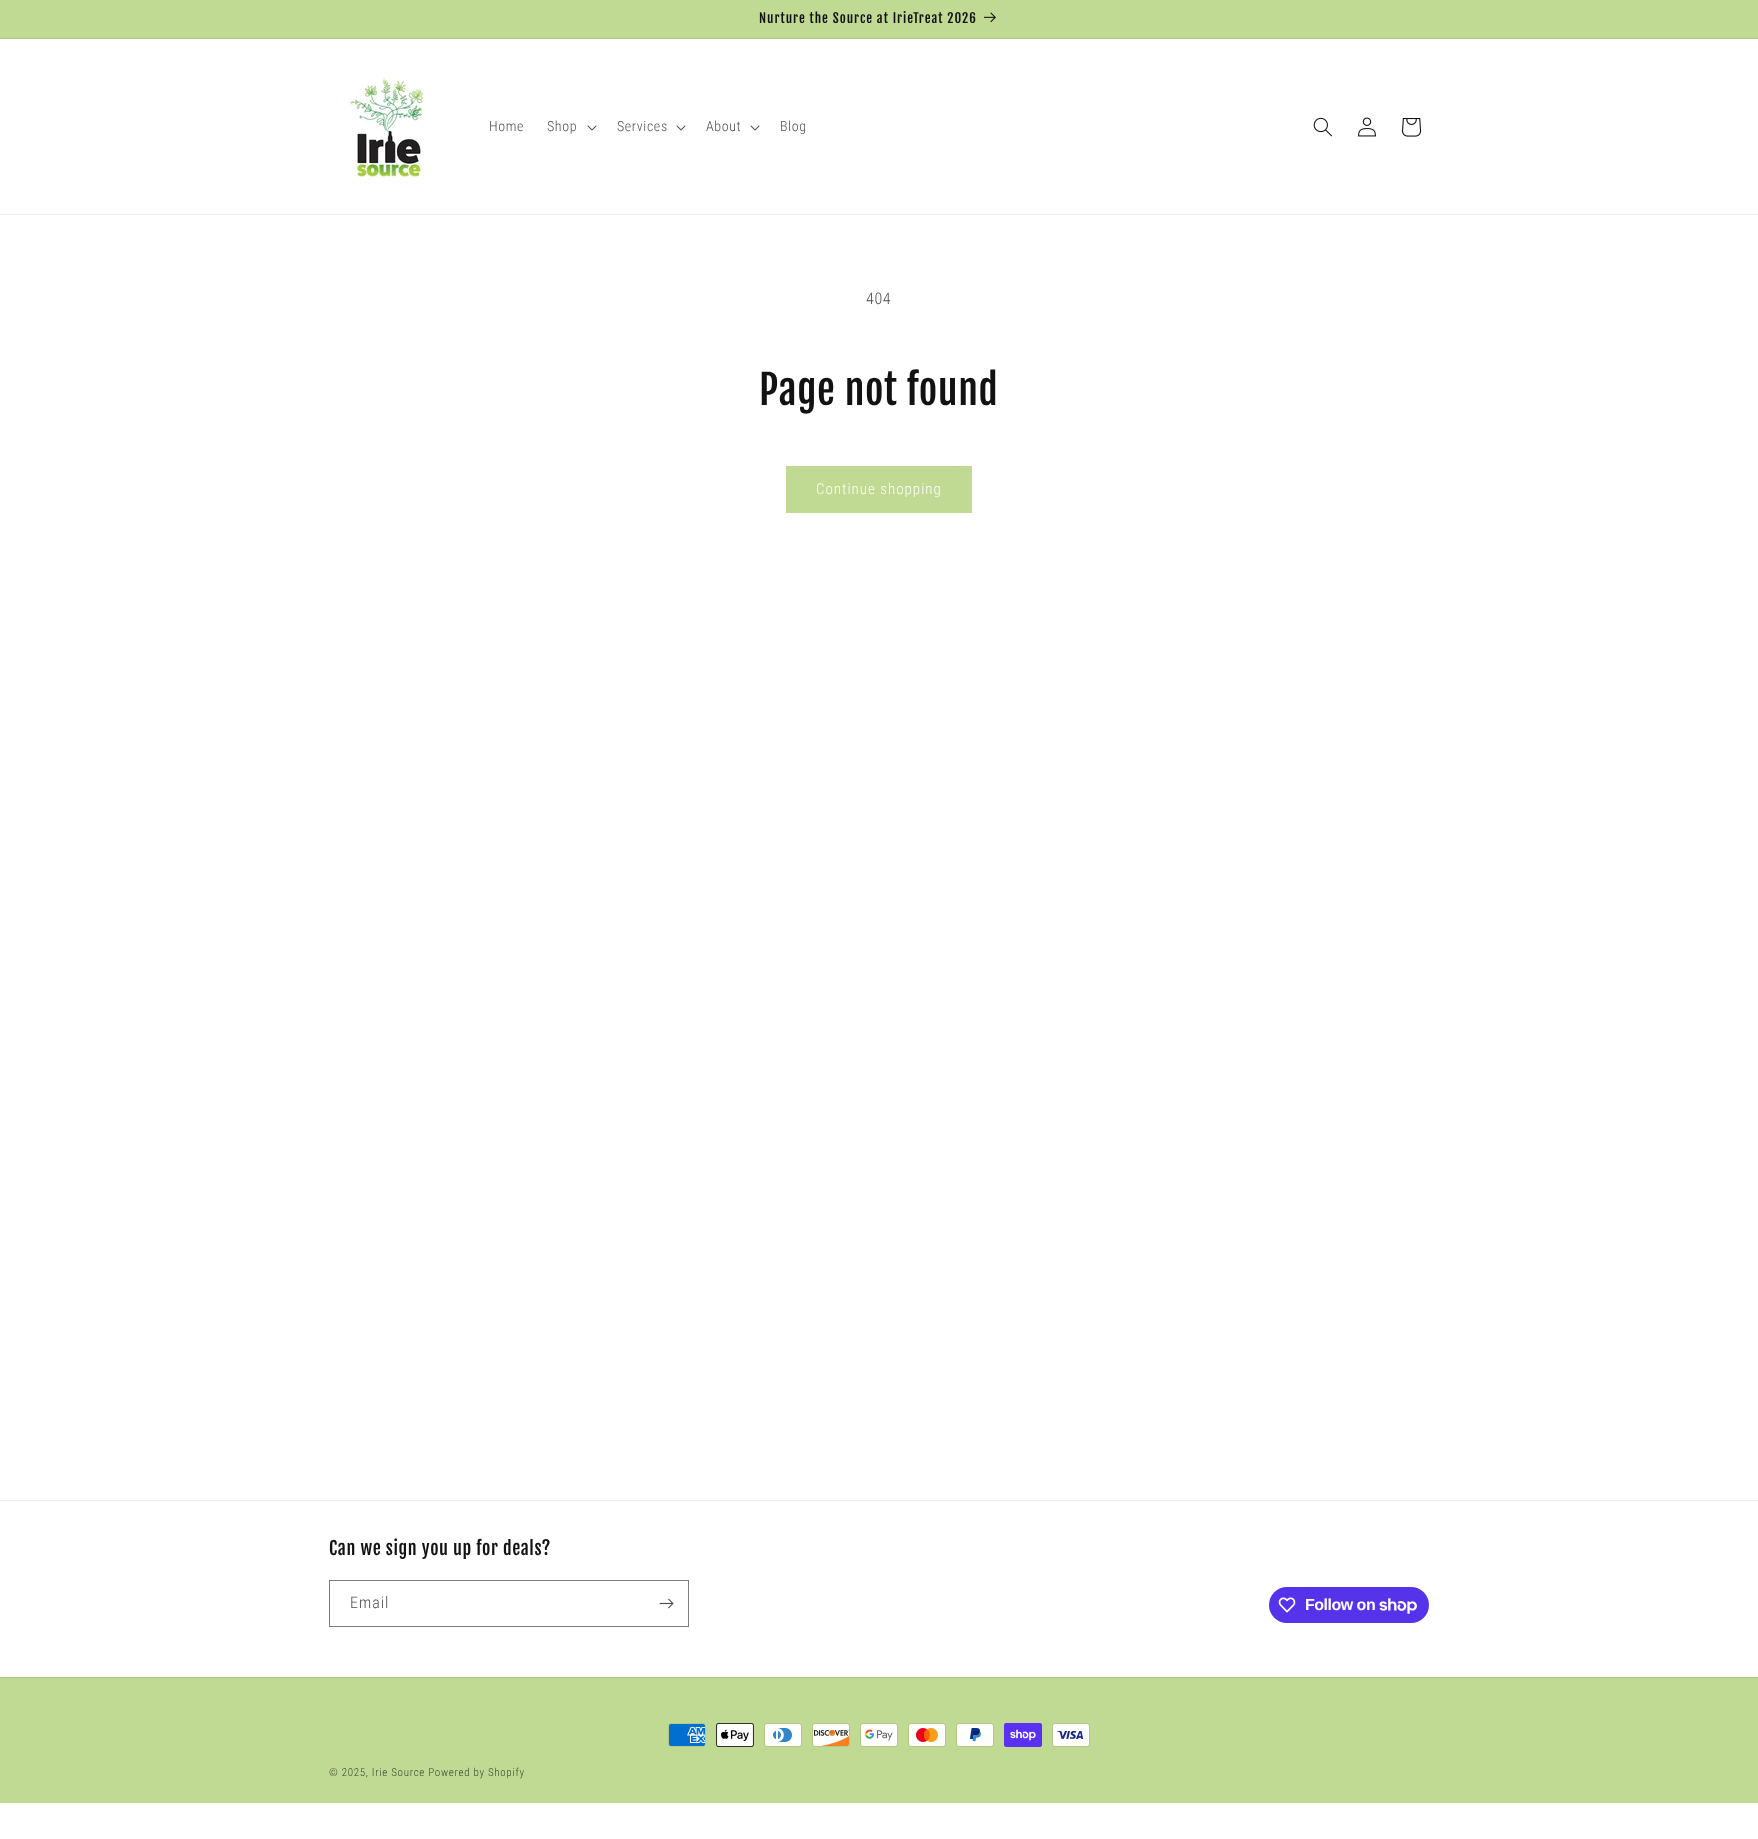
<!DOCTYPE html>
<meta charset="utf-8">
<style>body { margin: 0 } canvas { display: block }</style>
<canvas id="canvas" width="1758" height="1839"></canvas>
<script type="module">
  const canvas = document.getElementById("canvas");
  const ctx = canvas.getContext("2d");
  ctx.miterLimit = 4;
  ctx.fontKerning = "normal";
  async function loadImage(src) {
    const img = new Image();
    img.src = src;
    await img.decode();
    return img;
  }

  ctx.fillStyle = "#ffffff";
  ctx.fillRect(0, 0, 1758, 1839);
  ctx.fillStyle = "#c0d993";
  ctx.fillRect(0, 0, 1758, 38);
  ctx.fillStyle = "#b2c989";
  ctx.fillRect(0, 38, 1758, 1);
  ctx.letterSpacing = "1px";
  ctx.font = "13px Fjalla One";
  ctx.fillStyle = "#121212";
  ctx.fillText("Nurture the Source at IrieTreat 2026", 759, 23);
  ctx.drawImage(await loadImage("img1.png"), 984, 12, 12, 11);
  ctx.fillStyle = "#ececec";
  ctx.fillRect(0, 214, 1758, 1);
  ctx.drawImage(await loadImage("img2.png"), 349, 77, 76, 102);
  ctx.letterSpacing = "0.6px";
  ctx.font = "300 14px Roboto Condensed";
  ctx.fillStyle = "#4d4d4d";
  ctx.fillText("Home", 489, 131);
  ctx.fillText("Shop", 547, 131);
  ctx.drawImage(await loadImage("img3.png"), 587, 125, 10, 6);
  ctx.fillText("Services", 617, 131);
  ctx.drawImage(await loadImage("img3.png"), 676, 125, 10, 6);
  ctx.fillText("About", 706, 131);
  ctx.drawImage(await loadImage("img3.png"), 750, 125, 10, 6);
  ctx.fillText("Blog", 780, 131);
  ctx.drawImage(await loadImage("img4.png"), 1313, 117, 19, 20);
  ctx.drawImage(await loadImage("img5.png"), 1358, 117, 18, 20);
  ctx.drawImage(await loadImage("img6.png"), 1402, 118, 20, 19);
  ctx.font = "300 16px Roboto Condensed";
  ctx.fillText("404", 866, 304);
  ctx.font = "40px Fjalla One";
  ctx.fillStyle = "#121212";
  ctx.fillText("Page not found", 759, 405);
  ctx.fillStyle = "#c0d993";
  ctx.fillRect(786, 466, 186, 47);
  ctx.letterSpacing = "1px";
  ctx.font = "300 15px Roboto Condensed";
  ctx.fillStyle = "#ffffff";
  ctx.fillText("Continue shopping", 816, 494);
  ctx.fillStyle = "#ececec";
  ctx.fillRect(0, 1500, 1758, 1);
  ctx.letterSpacing = "0.6px";
  ctx.font = "18px Fjalla One";
  ctx.fillStyle = "#121212";
  ctx.fillText("Can we sign you up for deals?", 329, 1555);
  ctx.strokeStyle = "#7d7d7d";
  ctx.strokeRect(329.5, 1580.5, 359, 46);
  ctx.letterSpacing = "1px";
  ctx.font = "300 16px Roboto Condensed";
  ctx.fillStyle = "#4d4d4d";
  ctx.fillText("Email", 350, 1608);
  ctx.drawImage(await loadImage("img7.png"), 659, 1598, 15, 11);
  ctx.fillStyle = "#5433eb";
  ctx.beginPath();
  ctx.roundRect(1269, 1587, 160, 36, 18);
  ctx.fill();
  ctx.drawImage(await loadImage("img8.png"), 1278, 1597, 18, 16);
  ctx.letterSpacing = "-0.5px";
  ctx.font = "bold 16px Liberation Sans";
  ctx.fillStyle = "#ffffff";
  ctx.fillText("Follow on", 1305, 1610);
  ctx.drawImage(await loadImage("img9.png"), 1379, 1598, 38, 16);
  ctx.fillStyle = "#c0d993";
  ctx.fillRect(0, 1678, 1758, 125);
  ctx.fillStyle = "#b2c989";
  ctx.fillRect(0, 1677, 1758, 1);
  ctx.drawImage(await loadImage("img10.png"), 668, 1723, 38, 24);
  ctx.drawImage(await loadImage("img11.png"), 716, 1723, 38, 24);
  ctx.drawImage(await loadImage("img12.png"), 764, 1723, 38, 24);
  ctx.drawImage(await loadImage("img13.png"), 812, 1723, 38, 24);
  ctx.drawImage(await loadImage("img14.png"), 860, 1723, 38, 24);
  ctx.drawImage(await loadImage("img15.png"), 908, 1723, 38, 24);
  ctx.drawImage(await loadImage("img16.png"), 956, 1723, 38, 24);
  ctx.drawImage(await loadImage("img17.png"), 1004, 1723, 38, 24);
  ctx.drawImage(await loadImage("img18.png"), 1052, 1723, 38, 24);
  ctx.letterSpacing = "0.7px";
  ctx.font = "300 11px Roboto Condensed";
  ctx.fillStyle = "#3e4432";
  ctx.fillText("© 2025, Irie Source Powered by Shopify", 329, 1776);
</script>
